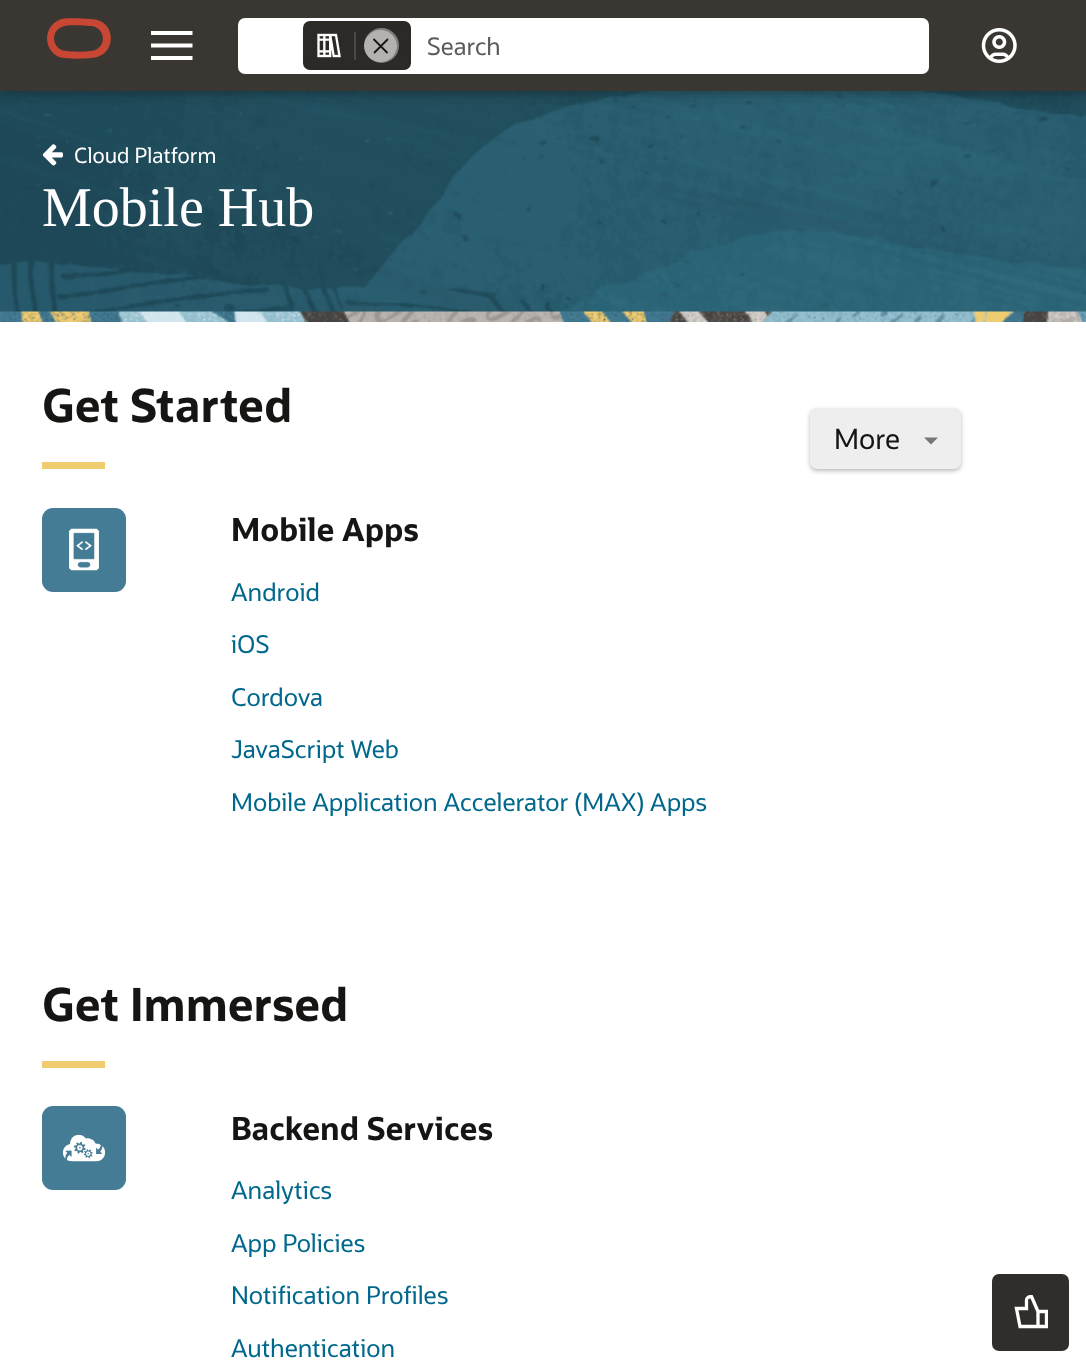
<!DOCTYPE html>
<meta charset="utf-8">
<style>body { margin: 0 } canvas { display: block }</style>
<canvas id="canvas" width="1086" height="1368"></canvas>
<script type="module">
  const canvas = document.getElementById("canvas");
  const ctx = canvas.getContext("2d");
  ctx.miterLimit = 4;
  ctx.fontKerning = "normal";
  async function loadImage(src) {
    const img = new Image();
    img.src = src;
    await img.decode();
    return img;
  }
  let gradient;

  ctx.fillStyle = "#3a3632";
  ctx.fillRect(0, 0, 1086, 1368);
  ctx.drawImage(await loadImage("img3.png"), 0, 91, 1086, 221);
  ctx.save();
  ctx.beginPath();
  ctx.rect(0, 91, 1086, 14);
  ctx.clip();
  ctx.fillStyle = "rgba(0, 0, 0, 0.15)";
  ctx.filter = "blur(9px)";
  ctx.beginPath();
  ctx.rect(0, 4, 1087, 91);
  ctx.fill();
  ctx.filter = "none";
  ctx.restore();
  ctx.fillStyle = "#c74634";
  ctx.beginPath();
  ctx.moveTo(91, 19);
  ctx.bezierCurveTo(117, 19, 118, 57, 91, 58);
  ctx.bezierCurveTo(83, 59, 65, 59, 59, 57);
  ctx.bezierCurveTo(43, 50, 43, 27, 59, 20);
  ctx.bezierCurveTo(66, 17, 82, 19, 91, 19);
  ctx.closePath();
  ctx.moveTo(90, 26);
  ctx.bezierCurveTo(84, 26, 68, 24, 62, 27);
  ctx.bezierCurveTo(49, 32, 53, 51, 67, 51);
  ctx.bezierCurveTo(73, 52, 90, 52, 95, 50);
  ctx.bezierCurveTo(108, 45, 104, 26, 90, 26);
  ctx.closePath();
  ctx.fill("evenodd");
  ctx.save();
  ctx.beginPath();
  ctx.rect(151, 25, 42, 42);
  ctx.clip();
  ctx.beginPath();
  ctx.moveTo(150.5, 33);
  ctx.lineTo(192.5, 33);
  ctx.moveTo(150.5, 45.5);
  ctx.lineTo(192.5, 45.5);
  ctx.moveTo(150.5, 58);
  ctx.lineTo(192.5, 58);
  ctx.strokeStyle = "#ffffff";
  ctx.lineWidth = 4.2;
  ctx.stroke();
  ctx.restore();
  ctx.fillStyle = "#ffffff";
  ctx.beginPath();
  ctx.roundRect(238, 18, 691, 56, 7);
  ctx.fill();
  ctx.fillStyle = "#2c2926";
  ctx.beginPath();
  ctx.roundRect(304, 22, 106, 47, 6);
  ctx.fill();
  ctx.strokeStyle = "#2c2926";
  ctx.lineWidth = 2;
  ctx.stroke();
  ctx.drawImage(await loadImage("img1.png"), 317, 33, 24, 25);
  ctx.fillStyle = "#4b4946";
  ctx.fillRect(354, 32, 2, 28);
  ctx.fillStyle = "#807f7d";
  ctx.beginPath();
  ctx.arc(381.5, 45.5, 18.5, 0, Math.PI * 2);
  ctx.fill();
  ctx.stroke();
  ctx.fillStyle = "rgba(255, 255, 255, 0.4)";
  ctx.beginPath();
  ctx.moveTo(380.5, 30);
  ctx.bezierCurveTo(371.5, 30, 364.5, 37, 364, 46);
  ctx.bezierCurveTo(364.5, 55, 371.5, 62, 380.5, 62);
  ctx.bezierCurveTo(389.5, 62, 396.5, 55, 397, 46);
  ctx.bezierCurveTo(396.5, 37, 389.5, 30, 380.5, 30);
  ctx.closePath();
  ctx.fill();
  ctx.beginPath();
  ctx.moveTo(373.5, 39);
  ctx.lineTo(387.5, 53);
  ctx.moveTo(388, 39);
  ctx.lineTo(374, 53);
  ctx.strokeStyle = "#161513";
  ctx.lineWidth = 1.8;
  ctx.stroke();
  ctx.font = "24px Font";
  ctx.fillStyle = "#5c5b5a";
  ctx.fillText("Search", 427, 55);
  ctx.drawImage(await loadImage("img2.png"), 981, 28, 36, 35);
  gradient = ctx.createLinearGradient(543, 91, 543, 100);
  gradient.addColorStop(0, "rgba(0, 0, 0, 0.12)");
  gradient.addColorStop(1, "rgba(0, 0, 0, 0)");
  ctx.fillStyle = gradient;
  ctx.fillRect(0, 91, 1086, 7);
  ctx.drawImage(await loadImage("img4.png"), 42, 144, 21, 22);
  ctx.font = "21px Font";
  ctx.fillStyle = "#ffffff";
  ctx.fillText("Cloud Platform", 74, 163);
  ctx.font = "56px Liberation Serif";
  ctx.fillText("Mobile Hub", 42, 226);
  ctx.drawImage(await loadImage("img5.png"), 0, 311, 1086, 11);
  ctx.fillRect(0, 322, 1086, 1046);
  ctx.font = "bold 45.5px Font";
  ctx.fillStyle = "#161513";
  ctx.fillText("Get Started", 42, 422);
  ctx.fillStyle = "#f0cc71";
  ctx.fillRect(42, 462, 63, 7);
  ctx.fillStyle = "rgba(29, 29, 29, 0.3)";
  ctx.filter = "blur(2px)";
  ctx.beginPath();
  ctx.roundRect(810, 410, 151, 61, 7);
  ctx.fill();
  ctx.filter = "none";
  ctx.fillStyle = "#eeeeee";
  ctx.beginPath();
  ctx.roundRect(810, 408, 151, 61, 7);
  ctx.fill();
  ctx.font = "28px Font";
  ctx.fillStyle = "#161513";
  ctx.fillText("More", 834, 449);
  ctx.fillStyle = "#777674";
  ctx.beginPath();
  ctx.moveTo(924, 437.5);
  ctx.lineTo(938, 437.5);
  ctx.lineTo(931, 444.5);
  ctx.closePath();
  ctx.fill();
  ctx.fillStyle = "#437c94";
  ctx.beginPath();
  ctx.roundRect(42, 508, 84, 84, 11);
  ctx.fill();
  ctx.drawImage(await loadImage("img6.png"), 69, 528, 30, 43);
  ctx.font = "bold 31.5px Font";
  ctx.fillStyle = "#161513";
  ctx.fillText("Mobile Apps", 231, 541);
  ctx.font = "24.5px Font";
  ctx.fillStyle = "#00688c";
  ctx.fillText("Android", 231, 601);
  ctx.fillText("iOS", 231, 653);
  ctx.fillText("Cordova", 231, 706);
  ctx.fillText("JavaScript Web", 231, 758);
  ctx.fillText("Mobile Application Accelerator (MAX) Apps", 231, 811);
  ctx.font = "bold 45.5px Font";
  ctx.fillStyle = "#161513";
  ctx.fillText("Get Immersed", 42, 1021);
  ctx.fillStyle = "#f0cc71";
  ctx.fillRect(42, 1061, 63, 7);
  ctx.fillStyle = "#437c94";
  ctx.beginPath();
  ctx.roundRect(42, 1106, 84, 84, 11);
  ctx.fill();
  ctx.drawImage(await loadImage("img7.png"), 63, 1134, 42, 28);
  ctx.font = "bold 31.5px Font";
  ctx.fillStyle = "#161513";
  ctx.fillText("Backend Services", 231, 1140);
  ctx.font = "24.5px Font";
  ctx.fillStyle = "#00688c";
  ctx.fillText("Analytics", 231, 1199);
  ctx.fillText("App Policies", 231, 1252);
  ctx.fillText("Notification Profiles", 231, 1304);
  ctx.fillText("Authentication", 231, 1357);
  ctx.fillStyle = "#312d2a";
  ctx.beginPath();
  ctx.roundRect(992, 1274, 77, 77, 7);
  ctx.fill();
  ctx.save();
  ctx.beginPath();
  ctx.rect(1013, 1295, 35, 35);
  ctx.clip();
  ctx.beginPath();
  ctx.moveTo(1038, 1311.5);
  ctx.lineTo(1031.5, 1296.5);
  ctx.bezierCurveTo(1027.5, 1296.5, 1026.5, 1299, 1026.5, 1300);
  ctx.lineTo(1026.5, 1308.5);
  ctx.lineTo(1016.5, 1308.5);
  ctx.lineTo(1020, 1326.5);
  ctx.lineTo(1038, 1326.5);
  ctx.moveTo(1038, 1311.5);
  ctx.lineTo(1046.5, 1311.5);
  ctx.lineTo(1046.5, 1326.5);
  ctx.lineTo(1038, 1326.5);
  ctx.moveTo(1038, 1311.5);
  ctx.lineTo(1038, 1326.5);
  ctx.strokeStyle = "#ffffff";
  ctx.lineWidth = 3.3;
  ctx.stroke();
  ctx.restore();
</script>
